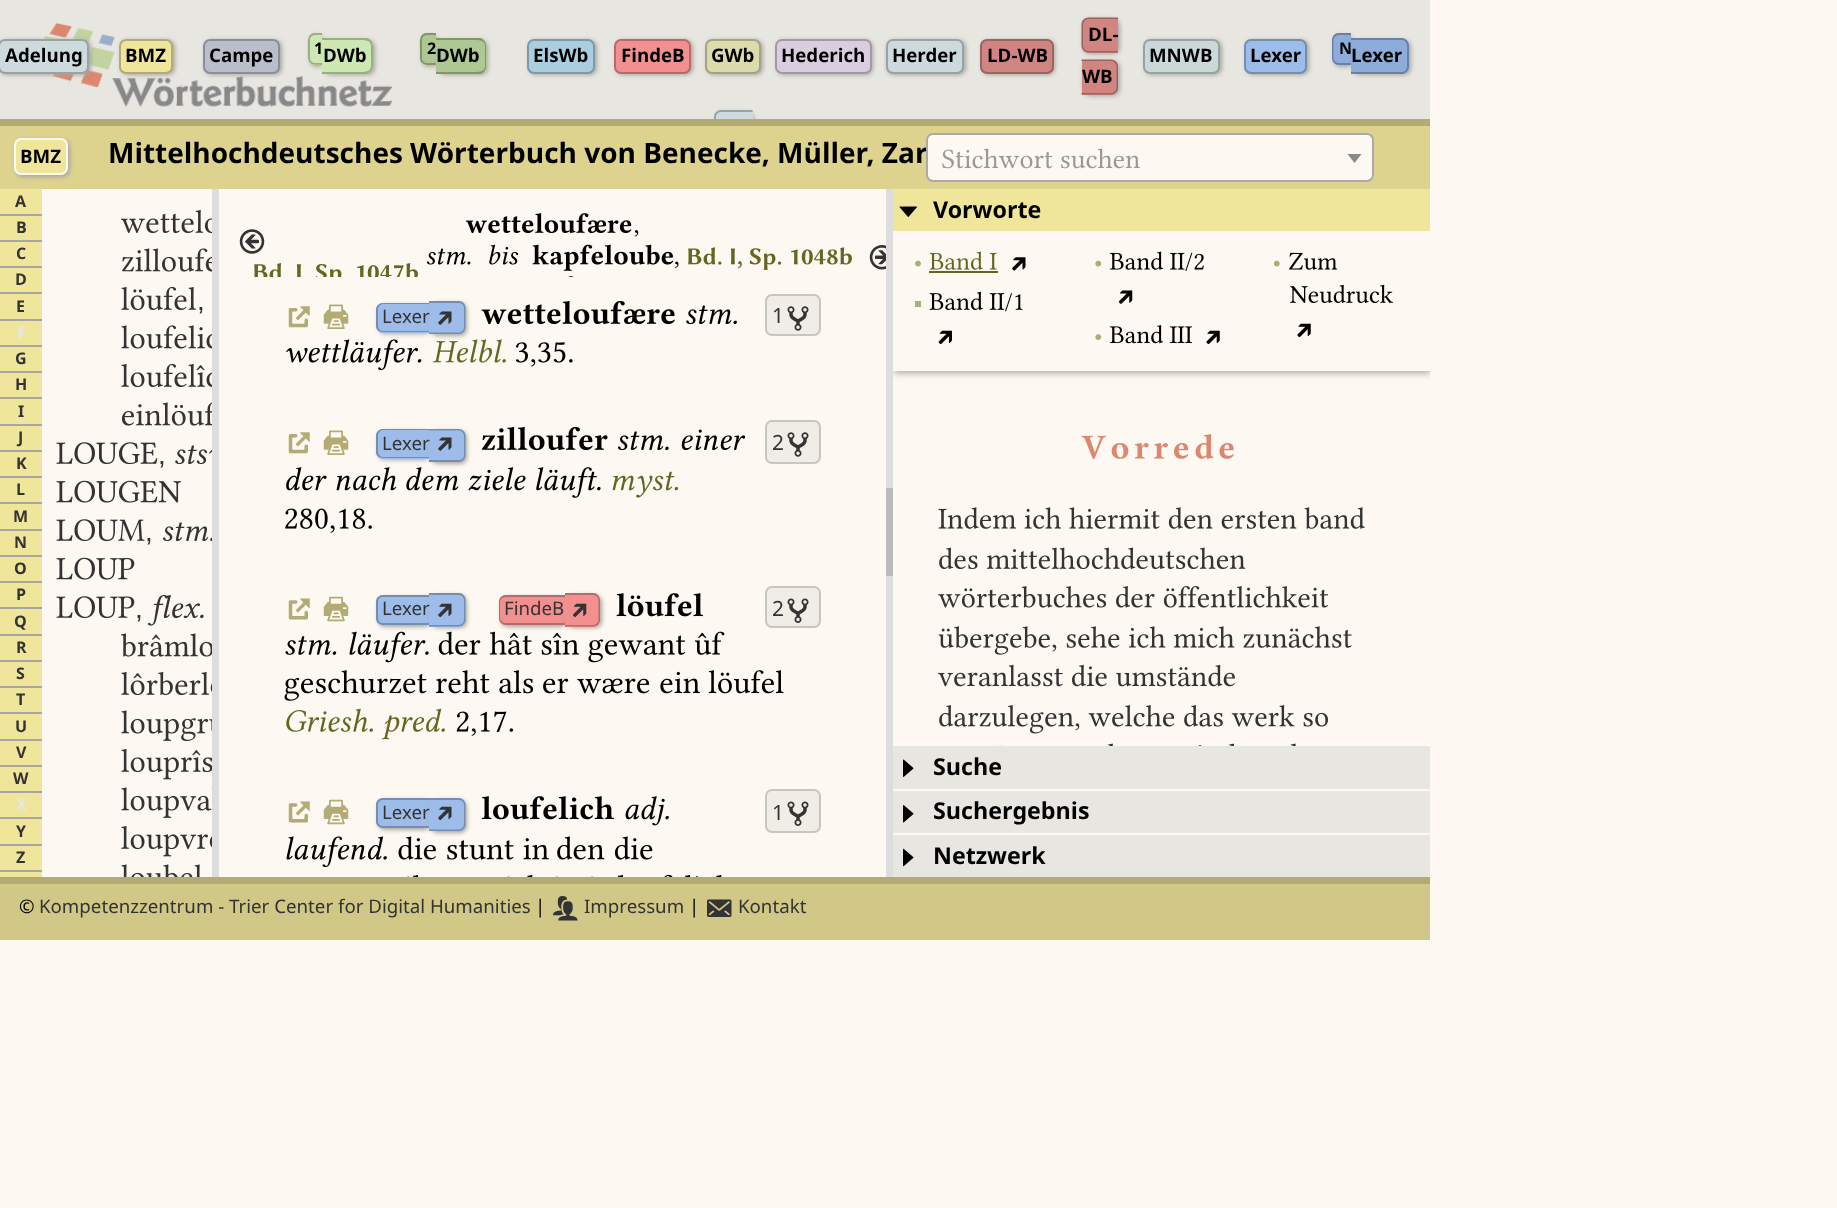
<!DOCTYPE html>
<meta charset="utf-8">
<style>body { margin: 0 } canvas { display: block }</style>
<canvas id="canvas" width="1837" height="1208"></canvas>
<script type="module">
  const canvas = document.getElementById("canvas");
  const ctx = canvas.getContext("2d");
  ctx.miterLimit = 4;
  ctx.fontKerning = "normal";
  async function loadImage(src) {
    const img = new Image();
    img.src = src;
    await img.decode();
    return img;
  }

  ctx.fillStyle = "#fdf9f2";
  ctx.fillRect(0, 0, 1837, 1208);
  ctx.fillStyle = "#b3ab74";
  ctx.fillRect(0, 119, 1430, 7);
  ctx.fillStyle = "#e8e6e1";
  ctx.fillRect(0, 0, 1430, 119);
  ctx.drawImage(await loadImage("img1.png"), 43, 22, 349, 85);
  ctx.fillStyle = "#a8a6a1";
  ctx.filter = "blur(2px)";
  ctx.beginPath();
  ctx.roundRect(0, 40, 91, 35, 7);
  ctx.fill();
  ctx.filter = "none";
  ctx.fillStyle = "#cddade";
  ctx.beginPath();
  ctx.roundRect(-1, 40, 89, 33, 6);
  ctx.fill();
  ctx.strokeStyle = "#99a3a6";
  ctx.lineWidth = 2;
  ctx.stroke();
  ctx.font = "bold 18.7px Noto Sans";
  ctx.fillStyle = "#000000";
  ctx.fillText("Adelung", 5, 62);
  ctx.fillStyle = "#a8a6a1";
  ctx.filter = "blur(2px)";
  ctx.beginPath();
  ctx.roundRect(121, 40, 54, 35, 7);
  ctx.fill();
  ctx.filter = "none";
  ctx.fillStyle = "#efe59b";
  ctx.beginPath();
  ctx.roundRect(120, 40, 52, 33, 6);
  ctx.fill();
  ctx.strokeStyle = "#b3ab74";
  ctx.stroke();
  ctx.fillStyle = "#000000";
  ctx.fillText("BMZ", 125, 62);
  ctx.fillStyle = "#a8a6a1";
  ctx.filter = "blur(2px)";
  ctx.beginPath();
  ctx.roundRect(205, 40, 77, 35, 7);
  ctx.fill();
  ctx.filter = "none";
  ctx.fillStyle = "#babecb";
  ctx.beginPath();
  ctx.roundRect(204, 40, 75, 33, 6);
  ctx.fill();
  ctx.strokeStyle = "#8b8e98";
  ctx.stroke();
  ctx.fillStyle = "#000000";
  ctx.fillText("Campe", 209, 62);
  ctx.fillStyle = "#a8a6a1";
  ctx.filter = "blur(2px)";
  ctx.beginPath();
  ctx.roundRect(310, 35, 14, 32, 7);
  ctx.fill();
  ctx.filter = "none";
  ctx.fillStyle = "#cee8b3";
  ctx.beginPath();
  ctx.roundRect(308, 33, 14, 32, [7, 0, 0, 7]);
  ctx.fill();
  ctx.fillStyle = "#9aae86";
  ctx.beginPath();
  ctx.moveTo(315, 33);
  ctx.lineTo(322, 33);
  ctx.lineTo(322, 65);
  ctx.lineTo(313.5, 64.5);
  ctx.bezierCurveTo(306.5, 63, 308, 54.5, 308, 49);
  ctx.bezierCurveTo(308, 43.5, 306.5, 33, 315, 33);
  ctx.closePath();
  ctx.moveTo(315, 35);
  ctx.lineTo(322, 35);
  ctx.lineTo(322, 63);
  ctx.lineTo(315, 63);
  ctx.bezierCurveTo(312, 63, 310, 60.5, 310, 58);
  ctx.lineTo(310, 40);
  ctx.bezierCurveTo(310, 37.5, 312, 35, 315, 35);
  ctx.closePath();
  ctx.fill("evenodd");
  ctx.fillStyle = "#a8a6a1";
  ctx.filter = "blur(2px)";
  ctx.beginPath();
  ctx.roundRect(324, 40, 51, 35, 7);
  ctx.fill();
  ctx.filter = "none";
  ctx.font = "bold 16px Noto Sans";
  ctx.fillStyle = "#000000";
  ctx.fillText("1", 314, 54);
  ctx.fillStyle = "#cee8b3";
  ctx.beginPath();
  ctx.roundRect(322, 39, 51, 35, [0, 7, 7, 0]);
  ctx.fill();
  ctx.fillStyle = "#9aae86";
  ctx.beginPath();
  ctx.moveTo(322, 38);
  ctx.lineTo(366, 38);
  ctx.bezierCurveTo(370, 38, 373, 42, 373, 46);
  ctx.lineTo(373, 66);
  ctx.bezierCurveTo(373, 70, 370, 74, 366, 74);
  ctx.lineTo(322, 74);
  ctx.closePath();
  ctx.moveTo(322, 40);
  ctx.lineTo(358, 40);
  ctx.bezierCurveTo(373, 40, 371, 42, 371, 56);
  ctx.bezierCurveTo(371, 70, 373, 72, 358, 72);
  ctx.lineTo(322, 72);
  ctx.closePath();
  ctx.fill("evenodd");
  ctx.font = "bold 18.7px Noto Sans";
  ctx.fillStyle = "#000000";
  ctx.fillText("DWb", 323, 62);
  ctx.fillStyle = "#a8a6a1";
  ctx.filter = "blur(2px)";
  ctx.beginPath();
  ctx.roundRect(422, 35, 16, 32, 7);
  ctx.fill();
  ctx.filter = "none";
  ctx.fillStyle = "#aec893";
  ctx.beginPath();
  ctx.roundRect(420, 33, 16, 32, [7, 0, 0, 7]);
  ctx.fill();
  ctx.fillStyle = "#82966e";
  ctx.beginPath();
  ctx.moveTo(427, 33);
  ctx.lineTo(436, 33);
  ctx.lineTo(436, 65);
  ctx.bezierCurveTo(430.5, 65, 421.5, 66.5, 420, 59);
  ctx.lineTo(420, 49);
  ctx.bezierCurveTo(420, 43.5, 418.5, 33, 427, 33);
  ctx.closePath();
  ctx.moveTo(427, 35);
  ctx.lineTo(436, 35);
  ctx.lineTo(436, 63);
  ctx.lineTo(427, 63);
  ctx.bezierCurveTo(424, 63, 422, 60.5, 422, 58);
  ctx.lineTo(422, 40);
  ctx.bezierCurveTo(422, 37.5, 424, 35, 427, 35);
  ctx.closePath();
  ctx.fill("evenodd");
  ctx.fillStyle = "#a8a6a1";
  ctx.filter = "blur(2px)";
  ctx.beginPath();
  ctx.roundRect(438, 40, 50, 35, 7);
  ctx.fill();
  ctx.filter = "none";
  ctx.font = "bold 16px Noto Sans";
  ctx.fillStyle = "#000000";
  ctx.fillText("2", 427, 54);
  ctx.fillStyle = "#aec893";
  ctx.beginPath();
  ctx.roundRect(436, 39, 51, 35, [0, 7, 7, 0]);
  ctx.fill();
  ctx.fillStyle = "#82966e";
  ctx.beginPath();
  ctx.moveTo(436, 38);
  ctx.lineTo(480, 38);
  ctx.bezierCurveTo(483, 38, 486, 42, 486, 46);
  ctx.lineTo(486, 66);
  ctx.bezierCurveTo(486, 70, 483, 74, 480, 74);
  ctx.lineTo(436, 74);
  ctx.closePath();
  ctx.moveTo(436, 40);
  ctx.lineTo(472, 40);
  ctx.bezierCurveTo(487, 40, 485, 42, 485, 56);
  ctx.bezierCurveTo(485, 70, 487, 72, 472, 72);
  ctx.lineTo(436, 72);
  ctx.closePath();
  ctx.fill("evenodd");
  ctx.font = "bold 18.7px Noto Sans";
  ctx.fillStyle = "#000000";
  ctx.fillText("DWb", 436, 62);
  ctx.fillStyle = "#a8a6a1";
  ctx.filter = "blur(2px)";
  ctx.beginPath();
  ctx.roundRect(529, 40, 68, 35, 7);
  ctx.fill();
  ctx.filter = "none";
  ctx.fillStyle = "#aacddf";
  ctx.beginPath();
  ctx.roundRect(528, 40, 66, 33, 6);
  ctx.fill();
  ctx.strokeStyle = "#7f99a7";
  ctx.stroke();
  ctx.fillStyle = "#000000";
  ctx.fillText("ElsWb", 533, 62);
  ctx.fillStyle = "#a8a6a1";
  ctx.filter = "blur(2px)";
  ctx.beginPath();
  ctx.roundRect(616, 40, 77, 35, 7);
  ctx.fill();
  ctx.filter = "none";
  ctx.fillStyle = "#f28f8f";
  ctx.beginPath();
  ctx.roundRect(615, 40, 75, 33, 6);
  ctx.fill();
  ctx.strokeStyle = "#b56b6b";
  ctx.stroke();
  ctx.fillStyle = "#000000";
  ctx.fillText("FindeB", 621, 62);
  ctx.fillStyle = "#a8a6a1";
  ctx.filter = "blur(2px)";
  ctx.beginPath();
  ctx.roundRect(707, 40, 56, 35, 7);
  ctx.fill();
  ctx.filter = "none";
  ctx.fillStyle = "#dbdbac";
  ctx.beginPath();
  ctx.roundRect(706, 40, 54, 33, 6);
  ctx.fill();
  ctx.strokeStyle = "#a4a481";
  ctx.stroke();
  ctx.fillStyle = "#000000";
  ctx.fillText("GWb", 711, 62);
  ctx.fillStyle = "#a8a6a1";
  ctx.filter = "blur(2px)";
  ctx.beginPath();
  ctx.roundRect(777, 40, 96, 35, 7);
  ctx.fill();
  ctx.filter = "none";
  ctx.fillStyle = "#dacdde";
  ctx.beginPath();
  ctx.roundRect(776, 40, 95, 33, 6);
  ctx.fill();
  ctx.strokeStyle = "#a399a6";
  ctx.stroke();
  ctx.fillStyle = "#000000";
  ctx.fillText("Hederich", 781, 62);
  ctx.fillStyle = "#a8a6a1";
  ctx.filter = "blur(2px)";
  ctx.beginPath();
  ctx.roundRect(887, 40, 79, 35, 7);
  ctx.fill();
  ctx.filter = "none";
  ctx.fillStyle = "#ccdade";
  ctx.beginPath();
  ctx.roundRect(887, 40, 76, 33, 6);
  ctx.fill();
  ctx.strokeStyle = "#99a3a6";
  ctx.stroke();
  ctx.fillStyle = "#000000";
  ctx.fillText("Herder", 892, 62);
  ctx.fillStyle = "#a8a6a1";
  ctx.filter = "blur(2px)";
  ctx.beginPath();
  ctx.roundRect(982, 40, 73, 35, 7);
  ctx.fill();
  ctx.filter = "none";
  ctx.fillStyle = "#d08581";
  ctx.beginPath();
  ctx.roundRect(981, 40, 72, 33, 6);
  ctx.fill();
  ctx.strokeStyle = "#9c6360";
  ctx.stroke();
  ctx.fillStyle = "#000000";
  ctx.fillText("LD-WB", 987, 62);
  ctx.fillStyle = "#a8a6a1";
  ctx.filter = "blur(2px)";
  ctx.beginPath();
  ctx.roundRect(1083, 19, 37, 35, 7);
  ctx.fill();
  ctx.filter = "none";
  ctx.fillStyle = "#d08581";
  ctx.beginPath();
  ctx.roundRect(1082, 18, 36, 35, [7, 0, 0, 7]);
  ctx.fill();
  ctx.fillStyle = "#9c6360";
  ctx.beginPath();
  ctx.moveTo(1088.5, 17.5);
  ctx.lineTo(1118, 17.5);
  ctx.lineTo(1118, 52.5);
  ctx.lineTo(1088.5, 52.5);
  ctx.bezierCurveTo(1084.5, 52.5, 1081.5, 49.5, 1081.5, 45.5);
  ctx.lineTo(1081.5, 24.5);
  ctx.bezierCurveTo(1081.5, 20.5, 1084.5, 17.5, 1088.5, 17.5);
  ctx.closePath();
  ctx.moveTo(1088.5, 19);
  ctx.lineTo(1118, 19);
  ctx.lineTo(1118, 51);
  ctx.lineTo(1088.5, 51);
  ctx.bezierCurveTo(1085.5, 51, 1083, 48.5, 1083, 45.5);
  ctx.lineTo(1083, 24.5);
  ctx.bezierCurveTo(1083, 21.5, 1085.5, 19, 1088.5, 19);
  ctx.closePath();
  ctx.fill("evenodd");
  ctx.fillStyle = "#000000";
  ctx.fillText("DL-", 1088, 41);
  ctx.fillStyle = "#a8a6a1";
  ctx.filter = "blur(2px)";
  ctx.beginPath();
  ctx.roundRect(1083, 61, 37, 35, 7);
  ctx.fill();
  ctx.filter = "none";
  ctx.fillStyle = "#d08581";
  ctx.beginPath();
  ctx.roundRect(1082, 60, 36, 35, [0, 7, 7, 0]);
  ctx.fill();
  ctx.fillStyle = "#9c6360";
  ctx.beginPath();
  ctx.moveTo(1081.5, 59.5);
  ctx.lineTo(1111, 59.5);
  ctx.bezierCurveTo(1115, 59.5, 1118, 62.5, 1118, 66.5);
  ctx.lineTo(1118, 87.5);
  ctx.bezierCurveTo(1118, 91.5, 1115, 94.5, 1111, 94.5);
  ctx.lineTo(1081.5, 94.5);
  ctx.closePath();
  ctx.moveTo(1081.5, 61);
  ctx.lineTo(1111, 61);
  ctx.bezierCurveTo(1114, 61, 1116.5, 63.5, 1116.5, 66.5);
  ctx.lineTo(1116.5, 87.5);
  ctx.bezierCurveTo(1116.5, 90.5, 1114, 93, 1111, 93);
  ctx.lineTo(1081.5, 93);
  ctx.closePath();
  ctx.fill("evenodd");
  ctx.fillStyle = "#000000";
  ctx.fillText("WB", 1082, 83);
  ctx.fillStyle = "#a8a6a1";
  ctx.filter = "blur(2px)";
  ctx.beginPath();
  ctx.roundRect(1145, 40, 77, 35, 7);
  ctx.fill();
  ctx.filter = "none";
  ctx.fillStyle = "#cad8d8";
  ctx.beginPath();
  ctx.roundRect(1144, 40, 75, 33, 6);
  ctx.fill();
  ctx.strokeStyle = "#97a2a2";
  ctx.stroke();
  ctx.fillStyle = "#000000";
  ctx.fillText("MNWB", 1149, 62);
  ctx.fillStyle = "#a8a6a1";
  ctx.filter = "blur(2px)";
  ctx.beginPath();
  ctx.roundRect(1246, 40, 63, 35, 7);
  ctx.fill();
  ctx.filter = "none";
  ctx.fillStyle = "#9dbcea";
  ctx.beginPath();
  ctx.roundRect(1245, 40, 61, 33, 6);
  ctx.fill();
  ctx.strokeStyle = "#758daf";
  ctx.stroke();
  ctx.fillStyle = "#000000";
  ctx.fillText("Lexer", 1250, 62);
  ctx.fillStyle = "#a8a6a1";
  ctx.filter = "blur(2px)";
  ctx.beginPath();
  ctx.roundRect(1334, 35, 19, 32, 7);
  ctx.fill();
  ctx.filter = "none";
  ctx.fillStyle = "#8dacda";
  ctx.beginPath();
  ctx.roundRect(1332, 33, 19, 32, [7, 0, 0, 7]);
  ctx.fill();
  ctx.fillStyle = "#6981a3";
  ctx.beginPath();
  ctx.moveTo(1339, 33);
  ctx.lineTo(1351, 33);
  ctx.lineTo(1351, 65);
  ctx.lineTo(1339, 65);
  ctx.bezierCurveTo(1335, 65, 1332, 61.5, 1332, 58);
  ctx.lineTo(1332, 40);
  ctx.bezierCurveTo(1332, 36.5, 1335, 33, 1339, 33);
  ctx.closePath();
  ctx.moveTo(1339, 35);
  ctx.lineTo(1351, 35);
  ctx.lineTo(1351, 63);
  ctx.lineTo(1339, 63);
  ctx.bezierCurveTo(1336, 63, 1333.5, 60.5, 1333.5, 58);
  ctx.lineTo(1333.5, 40);
  ctx.bezierCurveTo(1333.5, 37.5, 1336, 35, 1339, 35);
  ctx.closePath();
  ctx.fill("evenodd");
  ctx.fillStyle = "#a8a6a1";
  ctx.filter = "blur(2px)";
  ctx.beginPath();
  ctx.roundRect(1353, 40, 58, 35, 7);
  ctx.fill();
  ctx.filter = "none";
  ctx.font = "bold 16px Noto Sans";
  ctx.fillStyle = "#000000";
  ctx.fillText("N", 1339, 54);
  ctx.fillStyle = "#8dacda";
  ctx.beginPath();
  ctx.roundRect(1351, 39, 58, 35, [0, 7, 7, 0]);
  ctx.fill();
  ctx.fillStyle = "#6981a3";
  ctx.beginPath();
  ctx.moveTo(1351, 38);
  ctx.lineTo(1402, 38);
  ctx.bezierCurveTo(1406, 38, 1409, 42, 1409, 46);
  ctx.lineTo(1409, 66);
  ctx.bezierCurveTo(1409, 70, 1406, 74, 1402, 74);
  ctx.lineTo(1351, 74);
  ctx.closePath();
  ctx.moveTo(1351, 40);
  ctx.lineTo(1402, 40);
  ctx.bezierCurveTo(1405, 40, 1407, 43, 1407, 46);
  ctx.lineTo(1407, 66);
  ctx.bezierCurveTo(1407, 69, 1405, 72, 1402, 72);
  ctx.lineTo(1351, 72);
  ctx.closePath();
  ctx.fill("evenodd");
  ctx.font = "bold 18.7px Noto Sans";
  ctx.fillStyle = "#000000";
  ctx.fillText("Lexer", 1351, 62);
  ctx.save();
  ctx.beginPath();
  ctx.rect(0, 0, 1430, 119);
  ctx.clip();
  ctx.fillStyle = "#a8a6a1";
  ctx.filter = "blur(2px)";
  ctx.beginPath();
  ctx.roundRect(716, 112, 38, 35, 7);
  ctx.fill();
  ctx.filter = "none";
  ctx.restore();
  ctx.fillStyle = "#cddade";
  ctx.beginPath();
  ctx.roundRect(714, 110, 39, 9, [7, 0, 0, 0]);
  ctx.fill();
  ctx.save();
  ctx.beginPath();
  ctx.rect(0, 0, 1430, 119);
  ctx.clip();
  ctx.fillStyle = "#99a3a6";
  ctx.beginPath();
  ctx.moveTo(721, 110);
  ctx.lineTo(752.5, 110);
  ctx.lineTo(752.5, 145);
  ctx.lineTo(721, 145);
  ctx.bezierCurveTo(717, 145, 714, 142, 714, 138);
  ctx.lineTo(714, 117);
  ctx.bezierCurveTo(714, 113.5, 717, 110, 721, 110);
  ctx.closePath();
  ctx.moveTo(721, 112);
  ctx.lineTo(752.5, 112);
  ctx.lineTo(752.5, 143.5);
  ctx.lineTo(721, 143.5);
  ctx.bezierCurveTo(718, 143.5, 716, 141, 716, 138);
  ctx.lineTo(716, 117);
  ctx.bezierCurveTo(716, 114.5, 718, 112, 721, 112);
  ctx.closePath();
  ctx.fill("evenodd");
  ctx.restore();
  ctx.fillStyle = "#ddd38f";
  ctx.fillRect(0, 126, 1430, 63);
  ctx.fillStyle = "#a8a6a1";
  ctx.filter = "blur(2px)";
  ctx.beginPath();
  ctx.roundRect(16, 140, 54, 37, 7);
  ctx.fill();
  ctx.filter = "none";
  ctx.fillStyle = "#efe59b";
  ctx.beginPath();
  ctx.roundRect(15, 139, 52, 35, 6);
  ctx.fill();
  ctx.strokeStyle = "#fdf9f2";
  ctx.stroke();
  ctx.fillStyle = "#000000";
  ctx.fillText("BMZ", 20, 163);
  ctx.font = "bold 28px Noto Sans";
  ctx.fillText("Mittelhochdeutsches Wörterbuch von Benecke, Müller, Zar", 108, 163);
  ctx.fillStyle = "#fdf9f2";
  ctx.beginPath();
  ctx.roundRect(927, 134, 446, 47, 6);
  ctx.fill();
  ctx.strokeStyle = "#aaaaaa";
  ctx.stroke();
  ctx.drawImage(await loadImage("img2.png"), 942, 148, 198, 21);
  ctx.fillStyle = "#888888";
  ctx.beginPath();
  ctx.moveTo(1347.5, 154);
  ctx.lineTo(1361.5, 154);
  ctx.lineTo(1354.5, 163);
  ctx.closePath();
  ctx.fill();
  ctx.fillStyle = "#dddddd";
  ctx.fillRect(212, 189, 7, 688);
  ctx.drawImage(await loadImage("img34.png"), 869, 245, 17, 25);
  ctx.fillStyle = "#ffffff";
  ctx.fillRect(893, 741, 537, 5);
  ctx.fillStyle = "#fdf9f2";
  ctx.beginPath();
  ctx.roundRect(893, 231, 537, 515, [0, 0, 5, 5]);
  ctx.fill();
  ctx.save();
  ctx.beginPath();
  ctx.moveTo(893, 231);
  ctx.lineTo(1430, 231);
  ctx.lineTo(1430, 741);
  ctx.bezierCurveTo(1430, 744, 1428, 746, 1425, 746);
  ctx.lineTo(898, 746);
  ctx.bezierCurveTo(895, 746, 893, 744, 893, 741);
  ctx.closePath();
  ctx.clip();
  ctx.fillStyle = "#a8a6a1";
  ctx.filter = "blur(3.5px)";
  ctx.beginPath();
  ctx.rect(894, 233, 538, 140);
  ctx.fill();
  ctx.filter = "none";
  ctx.restore();
  ctx.fillStyle = "#dddddd";
  ctx.fillRect(886, 189, 7, 688);
  ctx.fillStyle = "#bbbbbb";
  ctx.fillRect(886, 488, 7, 88);
  ctx.fillStyle = "#efe59b";
  ctx.fillRect(0, 189, 42, 688);
  ctx.fillStyle = "#a8a6a1";
  ctx.fillRect(0, 214, 42, 2);
  ctx.font = "bold 16px Noto Sans";
  ctx.fillStyle = "#333333";
  ctx.fillText("A", 15, 207);
  ctx.fillStyle = "#a8a6a1";
  ctx.fillRect(0, 240, 42, 2);
  ctx.fillStyle = "#333333";
  ctx.fillText("B", 16, 233);
  ctx.fillStyle = "#a8a6a1";
  ctx.fillRect(0, 266, 42, 2);
  ctx.fillStyle = "#333333";
  ctx.fillText("C", 16, 259);
  ctx.fillStyle = "#a8a6a1";
  ctx.fillRect(0, 292, 42, 2);
  ctx.fillStyle = "#333333";
  ctx.fillText("D", 15, 285);
  ctx.fillStyle = "#a8a6a1";
  ctx.fillRect(0, 319, 42, 2);
  ctx.fillStyle = "#333333";
  ctx.fillText("E", 16, 312);
  ctx.fillStyle = "#a8a6a1";
  ctx.fillRect(0, 345, 42, 2);
  ctx.fillStyle = "#e8e6e1";
  ctx.fillText("F", 17, 338);
  ctx.fillStyle = "#a8a6a1";
  ctx.fillRect(0, 371, 42, 2);
  ctx.fillStyle = "#333333";
  ctx.fillText("G", 15, 364);
  ctx.fillStyle = "#a8a6a1";
  ctx.fillRect(0, 397, 42, 2);
  ctx.fillStyle = "#333333";
  ctx.fillText("H", 15, 390);
  ctx.fillStyle = "#a8a6a1";
  ctx.fillRect(0, 424, 42, 2);
  ctx.fillStyle = "#333333";
  ctx.fillText("I", 18, 417);
  ctx.fillStyle = "#a8a6a1";
  ctx.fillRect(0, 450, 42, 2);
  ctx.fillStyle = "#333333";
  ctx.fillText("J", 18, 443);
  ctx.fillStyle = "#a8a6a1";
  ctx.fillRect(0, 476, 42, 2);
  ctx.fillStyle = "#333333";
  ctx.fillText("K", 16, 469);
  ctx.fillStyle = "#a8a6a1";
  ctx.fillRect(0, 502, 42, 2);
  ctx.fillStyle = "#333333";
  ctx.fillText("L", 16, 495);
  ctx.fillStyle = "#a8a6a1";
  ctx.fillRect(0, 529, 42, 2);
  ctx.fillStyle = "#333333";
  ctx.fillText("M", 13, 522);
  ctx.fillStyle = "#a8a6a1";
  ctx.fillRect(0, 555, 42, 2);
  ctx.fillStyle = "#333333";
  ctx.fillText("N", 14, 548);
  ctx.fillStyle = "#a8a6a1";
  ctx.fillRect(0, 581, 42, 2);
  ctx.fillStyle = "#333333";
  ctx.fillText("O", 14, 574);
  ctx.fillStyle = "#a8a6a1";
  ctx.fillRect(0, 607, 42, 2);
  ctx.fillStyle = "#333333";
  ctx.fillText("P", 16, 600);
  ctx.fillStyle = "#a8a6a1";
  ctx.fillRect(0, 634, 42, 2);
  ctx.fillStyle = "#333333";
  ctx.fillText("Q", 14, 627);
  ctx.fillStyle = "#a8a6a1";
  ctx.fillRect(0, 660, 42, 2);
  ctx.fillStyle = "#333333";
  ctx.fillText("R", 16, 653);
  ctx.fillStyle = "#a8a6a1";
  ctx.fillRect(0, 686, 42, 2);
  ctx.fillStyle = "#333333";
  ctx.fillText("S", 16, 679);
  ctx.fillStyle = "#a8a6a1";
  ctx.fillRect(0, 712, 42, 2);
  ctx.fillStyle = "#333333";
  ctx.fillText("T", 16, 705);
  ctx.fillStyle = "#a8a6a1";
  ctx.fillRect(0, 739, 42, 2);
  ctx.fillStyle = "#333333";
  ctx.fillText("U", 15, 732);
  ctx.fillStyle = "#a8a6a1";
  ctx.fillRect(0, 765, 42, 2);
  ctx.fillStyle = "#333333";
  ctx.fillText("V", 16, 758);
  ctx.fillStyle = "#a8a6a1";
  ctx.fillRect(0, 791, 42, 2);
  ctx.fillStyle = "#333333";
  ctx.fillText("W", 13, 784);
  ctx.fillStyle = "#a8a6a1";
  ctx.fillRect(0, 817, 42, 2);
  ctx.fillStyle = "#e8e6e1";
  ctx.fillText("X", 16, 810);
  ctx.fillStyle = "#a8a6a1";
  ctx.fillRect(0, 844, 42, 2);
  ctx.fillStyle = "#333333";
  ctx.fillText("Y", 16, 837);
  ctx.fillStyle = "#a8a6a1";
  ctx.fillRect(0, 870, 42, 2);
  ctx.fillStyle = "#333333";
  ctx.fillText("Z", 16, 863);
  ctx.drawImage(await loadImage("img3.png"), 121, 210, 91, 24);
  ctx.drawImage(await loadImage("img4.png"), 122, 248, 90, 24);
  ctx.drawImage(await loadImage("img5.png"), 121, 286, 75, 25);
  ctx.font = "28px Liberation Sans";
  ctx.fillText(",", 197, 310);
  ctx.drawImage(await loadImage("img6.png"), 121, 325, 91, 24);
  ctx.drawImage(await loadImage("img7.png"), 121, 363, 91, 25);
  ctx.drawImage(await loadImage("img8.png"), 122, 402, 90, 24);
  ctx.drawImage(await loadImage("img9.png"), 56, 442, 102, 23);
  ctx.fillText(",", 158, 464);
  ctx.drawImage(await loadImage("img10.png"), 175, 445, 37, 20);
  ctx.drawImage(await loadImage("img11.png"), 56, 480, 125, 23);
  ctx.drawImage(await loadImage("img12.png"), 56, 519, 89, 23);
  ctx.fillText(",", 145, 541);
  ctx.drawImage(await loadImage("img13.png"), 163, 522, 49, 20);
  ctx.drawImage(await loadImage("img14.png"), 56, 557, 79, 23);
  ctx.drawImage(await loadImage("img15.png"), 56, 596, 79, 23);
  ctx.fillText(",", 135, 618);
  ctx.drawImage(await loadImage("img16.png"), 148, 594, 56, 32);
  ctx.drawImage(await loadImage("img17.png"), 121, 633, 91, 24);
  ctx.drawImage(await loadImage("img18.png"), 121, 672, 91, 24);
  ctx.drawImage(await loadImage("img19.png"), 121, 710, 91, 31);
  ctx.drawImage(await loadImage("img20.png"), 121, 749, 91, 31);
  ctx.drawImage(await loadImage("img21.png"), 121, 787, 91, 31);
  ctx.drawImage(await loadImage("img22.png"), 121, 826, 91, 31);
  ctx.drawImage(await loadImage("img23.png"), 121, 864, 79, 13);
  ctx.drawImage(await loadImage("img24.png"), 239, 229, 26, 25);
  ctx.drawImage(await loadImage("img25.png"), 254, 263, 164, 14);
  ctx.drawImage(await loadImage("img26.png"), 465, 213, 167, 21);
  ctx.drawImage(await loadImage("img27.png"), 634, 230, 5, 7);
  ctx.drawImage(await loadImage("img28.png"), 426, 248, 45, 17);
  ctx.drawImage(await loadImage("img29.png"), 489, 244, 30, 21);
  ctx.drawImage(await loadImage("img30.png"), 532, 244, 142, 27);
  ctx.drawImage(await loadImage("img31.png"), 675, 261, 4, 7);
  ctx.drawImage(await loadImage("img32.png"), 568, 276, 6, 1);
  ctx.drawImage(await loadImage("img33.png"), 688, 247, 164, 23);
  ctx.drawImage(await loadImage("img35.png"), 288, 306, 22, 22);
  ctx.drawImage(await loadImage("img36.png"), 323, 304, 26, 25);
  ctx.fillStyle = "#a8a6a1";
  ctx.filter = "blur(2px)";
  ctx.beginPath();
  ctx.roundRect(378, 305, 53, 29, 7);
  ctx.fill();
  ctx.filter = "none";
  ctx.fillStyle = "#9dbcea";
  ctx.beginPath();
  ctx.roundRect(376, 303, 53, 30, [7, 0, 0, 7]);
  ctx.fill();
  ctx.fillStyle = "#758daf";
  ctx.beginPath();
  ctx.moveTo(383, 303);
  ctx.lineTo(429, 303);
  ctx.lineTo(429, 332);
  ctx.lineTo(383, 332);
  ctx.bezierCurveTo(379, 332, 376, 329, 376, 326);
  ctx.lineTo(376, 310);
  ctx.bezierCurveTo(376, 306, 379, 303, 383, 303);
  ctx.closePath();
  ctx.moveTo(383, 304);
  ctx.lineTo(429, 304);
  ctx.lineTo(429, 331);
  ctx.lineTo(383, 331);
  ctx.bezierCurveTo(380, 331, 378, 328, 378, 326);
  ctx.lineTo(378, 310);
  ctx.bezierCurveTo(378, 307, 380, 304, 383, 304);
  ctx.closePath();
  ctx.fill("evenodd");
  ctx.fillStyle = "#a8a6a1";
  ctx.filter = "blur(2px)";
  ctx.beginPath();
  ctx.roundRect(431, 303, 36, 33, 7);
  ctx.fill();
  ctx.filter = "none";
  ctx.fillStyle = "#9dbcea";
  ctx.beginPath();
  ctx.roundRect(429, 301, 37, 33, [0, 7, 7, 0]);
  ctx.fill();
  ctx.fillStyle = "#758daf";
  ctx.beginPath();
  ctx.moveTo(429, 301);
  ctx.lineTo(458.5, 301);
  ctx.bezierCurveTo(462.5, 301, 465.5, 304, 465.5, 308);
  ctx.lineTo(465.5, 327);
  ctx.bezierCurveTo(465.5, 331, 462.5, 334, 458.5, 334);
  ctx.lineTo(429, 334);
  ctx.closePath();
  ctx.moveTo(429, 303);
  ctx.lineTo(458.5, 303);
  ctx.bezierCurveTo(461.5, 303, 464, 305, 464, 308);
  ctx.lineTo(464, 327);
  ctx.bezierCurveTo(464, 330, 461.5, 332.5, 458.5, 332.5);
  ctx.lineTo(429, 332.5);
  ctx.closePath();
  ctx.fill("evenodd");
  ctx.font = "18.7px Noto Sans";
  ctx.fillStyle = "#333333";
  ctx.fillText("Lexer", 382, 323);
  ctx.drawImage(await loadImage("img37.png"), 438, 311, 14, 14);
  ctx.drawImage(await loadImage("img38.png"), 481, 300, 194, 25);
  ctx.drawImage(await loadImage("img39.png"), 686, 305, 51, 20);
  ctx.fillStyle = "#f0ede6";
  ctx.beginPath();
  ctx.roundRect(766, 295, 54, 40, 6);
  ctx.fill();
  ctx.strokeStyle = "#c8c6c1";
  ctx.stroke();
  ctx.font = "21px Noto Sans";
  ctx.fillStyle = "#333333";
  ctx.fillText("1", 772, 323);
  ctx.drawImage(await loadImage("img40.png"), 787, 306, 22, 25);
  ctx.drawImage(await loadImage("img41.png"), 286, 339, 136, 31);
  ctx.drawImage(await loadImage("img42.png"), 432, 339, 74, 24);
  ctx.drawImage(await loadImage("img43.png"), 516, 342, 57, 25);
  ctx.drawImage(await loadImage("img35.png"), 288, 432, 22, 22);
  ctx.drawImage(await loadImage("img36.png"), 323, 430, 26, 25);
  ctx.fillStyle = "#a8a6a1";
  ctx.filter = "blur(2px)";
  ctx.beginPath();
  ctx.roundRect(378, 431, 53, 29, 7);
  ctx.fill();
  ctx.filter = "none";
  ctx.fillStyle = "#9dbcea";
  ctx.beginPath();
  ctx.roundRect(376, 429, 53, 30, [7, 0, 0, 7]);
  ctx.fill();
  ctx.fillStyle = "#758daf";
  ctx.beginPath();
  ctx.moveTo(383, 429);
  ctx.lineTo(429, 429);
  ctx.lineTo(429, 458);
  ctx.lineTo(383, 458);
  ctx.bezierCurveTo(379, 458, 376, 455, 376, 452);
  ctx.lineTo(376, 436);
  ctx.bezierCurveTo(376, 432, 379, 429, 383, 429);
  ctx.closePath();
  ctx.moveTo(383, 430);
  ctx.lineTo(429, 430);
  ctx.lineTo(429, 457);
  ctx.lineTo(383, 457);
  ctx.bezierCurveTo(380, 457, 378, 454, 378, 452);
  ctx.lineTo(378, 436);
  ctx.bezierCurveTo(378, 433, 380, 430, 383, 430);
  ctx.closePath();
  ctx.fill("evenodd");
  ctx.fillStyle = "#a8a6a1";
  ctx.filter = "blur(2px)";
  ctx.beginPath();
  ctx.roundRect(431, 431, 36, 33, 7);
  ctx.fill();
  ctx.filter = "none";
  ctx.fillStyle = "#9dbcea";
  ctx.beginPath();
  ctx.roundRect(429, 429, 37, 33, [0, 7, 7, 0]);
  ctx.fill();
  ctx.fillStyle = "#758daf";
  ctx.beginPath();
  ctx.moveTo(429, 429);
  ctx.lineTo(458.5, 429);
  ctx.bezierCurveTo(462.5, 429, 465.5, 432, 465.5, 436);
  ctx.lineTo(465.5, 455);
  ctx.bezierCurveTo(465.5, 459, 462.5, 462, 458.5, 462);
  ctx.lineTo(429, 462);
  ctx.closePath();
  ctx.moveTo(429, 430.5);
  ctx.lineTo(458.5, 430.5);
  ctx.bezierCurveTo(461.5, 430.5, 464, 433, 464, 436);
  ctx.lineTo(464, 455);
  ctx.bezierCurveTo(464, 458, 461.5, 460, 458.5, 460);
  ctx.lineTo(429, 460);
  ctx.closePath();
  ctx.fill("evenodd");
  ctx.font = "18.7px Noto Sans";
  ctx.fillStyle = "#333333";
  ctx.fillText("Lexer", 382, 450);
  ctx.drawImage(await loadImage("img37.png"), 438, 437, 14, 14);
  ctx.drawImage(await loadImage("img44.png"), 481, 426, 127, 25);
  ctx.drawImage(await loadImage("img45.png"), 618, 431, 51, 20);
  ctx.drawImage(await loadImage("img46.png"), 681, 429, 65, 22);
  ctx.fillStyle = "#f0ede6";
  ctx.beginPath();
  ctx.roundRect(766, 421, 54, 42, 6);
  ctx.fill();
  ctx.stroke();
  ctx.font = "21px Noto Sans";
  ctx.fillStyle = "#333333";
  ctx.fillText("2", 772, 450);
  ctx.drawImage(await loadImage("img40.png"), 787, 432, 22, 25);
  ctx.drawImage(await loadImage("img47.png"), 286, 467, 41, 24);
  ctx.drawImage(await loadImage("img48.png"), 336, 467, 61, 24);
  ctx.drawImage(await loadImage("img49.png"), 406, 467, 53, 24);
  ctx.drawImage(await loadImage("img50.png"), 468, 467, 58, 24);
  ctx.drawImage(await loadImage("img51.png"), 536, 467, 65, 31);
  ctx.drawImage(await loadImage("img52.png"), 612, 471, 67, 27);
  ctx.drawImage(await loadImage("img53.png"), 285, 508, 87, 25);
  ctx.drawImage(await loadImage("img54.png"), 288, 598, 22, 22);
  ctx.drawImage(await loadImage("img55.png"), 323, 596, 26, 26);
  ctx.fillStyle = "#a8a6a1";
  ctx.filter = "blur(2px)";
  ctx.beginPath();
  ctx.roundRect(378, 597, 53, 30, 7);
  ctx.fill();
  ctx.filter = "none";
  ctx.fillStyle = "#9dbcea";
  ctx.beginPath();
  ctx.roundRect(376, 595, 53, 30, [7, 0, 0, 7]);
  ctx.fill();
  ctx.fillStyle = "#758daf";
  ctx.beginPath();
  ctx.moveTo(383, 595);
  ctx.lineTo(429, 595);
  ctx.lineTo(429, 625);
  ctx.lineTo(383, 625);
  ctx.bezierCurveTo(379, 625, 376, 622, 376, 618);
  ctx.lineTo(376, 602);
  ctx.bezierCurveTo(376, 598, 379, 595, 383, 595);
  ctx.closePath();
  ctx.moveTo(383, 597);
  ctx.lineTo(429, 597);
  ctx.lineTo(429, 623);
  ctx.lineTo(383, 623);
  ctx.bezierCurveTo(380, 623, 378, 621, 378, 618);
  ctx.lineTo(378, 602);
  ctx.bezierCurveTo(378, 599, 380, 597, 383, 597);
  ctx.closePath();
  ctx.fill("evenodd");
  ctx.fillStyle = "#a8a6a1";
  ctx.filter = "blur(2px)";
  ctx.beginPath();
  ctx.roundRect(431, 595, 36, 33, 7);
  ctx.fill();
  ctx.filter = "none";
  ctx.fillStyle = "#9dbcea";
  ctx.beginPath();
  ctx.roundRect(429, 593, 37, 34, [0, 7, 7, 0]);
  ctx.fill();
  ctx.fillStyle = "#758daf";
  ctx.beginPath();
  ctx.moveTo(429, 593);
  ctx.lineTo(458.5, 593);
  ctx.bezierCurveTo(462.5, 593, 465.5, 596.5, 465.5, 600);
  ctx.lineTo(465.5, 619.5);
  ctx.bezierCurveTo(465.5, 623.5, 462.5, 626.5, 458.5, 626.5);
  ctx.lineTo(429, 626.5);
  ctx.closePath();
  ctx.moveTo(429, 595);
  ctx.lineTo(458.5, 595);
  ctx.bezierCurveTo(461.5, 595, 464, 597.5, 464, 600);
  ctx.lineTo(464, 619.5);
  ctx.bezierCurveTo(464, 622.5, 461.5, 625, 458.5, 625);
  ctx.lineTo(429, 625);
  ctx.closePath();
  ctx.fill("evenodd");
  ctx.font = "18.7px Noto Sans";
  ctx.fillStyle = "#333333";
  ctx.fillText("Lexer", 382, 615);
  ctx.drawImage(await loadImage("img56.png"), 438, 603, 14, 15);
  ctx.fillStyle = "#a8a6a1";
  ctx.filter = "blur(2px)";
  ctx.beginPath();
  ctx.roundRect(501, 597, 66, 30, 7);
  ctx.fill();
  ctx.filter = "none";
  ctx.fillStyle = "#f28f8f";
  ctx.beginPath();
  ctx.roundRect(499, 595, 66, 30, [7, 0, 0, 7]);
  ctx.fill();
  ctx.fillStyle = "#b56b6b";
  ctx.beginPath();
  ctx.moveTo(506, 595);
  ctx.lineTo(565, 595);
  ctx.lineTo(565, 625);
  ctx.lineTo(506, 625);
  ctx.bezierCurveTo(502, 625, 499, 622, 499, 618);
  ctx.lineTo(499, 602);
  ctx.bezierCurveTo(499, 598, 502, 595, 506, 595);
  ctx.closePath();
  ctx.moveTo(506, 597);
  ctx.lineTo(565, 597);
  ctx.lineTo(565, 623);
  ctx.lineTo(506, 623);
  ctx.bezierCurveTo(503, 623, 500, 621, 500, 618);
  ctx.lineTo(500, 602);
  ctx.bezierCurveTo(500, 599, 503, 597, 506, 597);
  ctx.closePath();
  ctx.fill("evenodd");
  ctx.fillStyle = "#a8a6a1";
  ctx.filter = "blur(2px)";
  ctx.beginPath();
  ctx.roundRect(567, 595, 35, 33, 7);
  ctx.fill();
  ctx.filter = "none";
  ctx.fillStyle = "#f28f8f";
  ctx.beginPath();
  ctx.roundRect(565, 593, 35, 34, [0, 7, 7, 0]);
  ctx.fill();
  ctx.fillStyle = "#b56b6b";
  ctx.beginPath();
  ctx.moveTo(565, 593);
  ctx.lineTo(593, 593);
  ctx.bezierCurveTo(597, 593, 600, 596.5, 600, 600);
  ctx.lineTo(600, 619.5);
  ctx.bezierCurveTo(600, 623.5, 597, 626.5, 593, 626.5);
  ctx.lineTo(565, 626.5);
  ctx.closePath();
  ctx.moveTo(565, 595);
  ctx.lineTo(593, 595);
  ctx.bezierCurveTo(596, 595, 598.5, 597.5, 598.5, 600);
  ctx.lineTo(598.5, 619.5);
  ctx.bezierCurveTo(598.5, 622.5, 596, 625, 593, 625);
  ctx.lineTo(565, 625);
  ctx.closePath();
  ctx.fill("evenodd");
  ctx.fillStyle = "#333333";
  ctx.fillText("FindeB", 504, 615);
  ctx.drawImage(await loadImage("img57.png"), 573, 603, 14, 14);
  ctx.drawImage(await loadImage("img58.png"), 616, 593, 87, 24);
  ctx.fillStyle = "#f0ede6";
  ctx.beginPath();
  ctx.roundRect(766, 587, 54, 40, 6);
  ctx.fill();
  ctx.stroke();
  ctx.font = "21px Noto Sans";
  ctx.fillStyle = "#333333";
  ctx.fillText("2", 772, 616);
  ctx.drawImage(await loadImage("img59.png"), 787, 598, 22, 25);
  ctx.drawImage(await loadImage("img60.png"), 285, 636, 52, 19);
  ctx.drawImage(await loadImage("img61.png"), 349, 631, 80, 32);
  ctx.drawImage(await loadImage("img62.png"), 438, 631, 43, 24);
  ctx.drawImage(await loadImage("img63.png"), 489, 631, 43, 24);
  ctx.drawImage(await loadImage("img64.png"), 541, 632, 38, 23);
  ctx.drawImage(await loadImage("img65.png"), 588, 635, 98, 28);
  ctx.drawImage(await loadImage("img66.png"), 694, 631, 31, 24);
  ctx.drawImage(await loadImage("img67.png"), 284, 670, 143, 31);
  ctx.drawImage(await loadImage("img68.png"), 435, 670, 55, 24);
  ctx.drawImage(await loadImage("img69.png"), 499, 670, 35, 24);
  ctx.drawImage(await loadImage("img70.png"), 543, 678, 26, 16);
  ctx.drawImage(await loadImage("img71.png"), 577, 678, 73, 16);
  ctx.drawImage(await loadImage("img72.png"), 660, 671, 40, 23);
  ctx.drawImage(await loadImage("img73.png"), 708, 670, 76, 24);
  ctx.drawImage(await loadImage("img74.png"), 286, 708, 87, 24);
  ctx.drawImage(await loadImage("img75.png"), 382, 708, 63, 32);
  ctx.drawImage(await loadImage("img76.png"), 456, 711, 57, 25);
  ctx.drawImage(await loadImage("img54.png"), 288, 801, 22, 22);
  ctx.drawImage(await loadImage("img55.png"), 323, 799, 26, 26);
  ctx.fillStyle = "#a8a6a1";
  ctx.filter = "blur(2px)";
  ctx.beginPath();
  ctx.roundRect(378, 800, 53, 30, 7);
  ctx.fill();
  ctx.filter = "none";
  ctx.fillStyle = "#9dbcea";
  ctx.beginPath();
  ctx.roundRect(376, 798, 53, 30, [7, 0, 0, 7]);
  ctx.fill();
  ctx.fillStyle = "#758daf";
  ctx.beginPath();
  ctx.moveTo(383, 798);
  ctx.lineTo(429, 798);
  ctx.lineTo(429, 828);
  ctx.lineTo(383, 828);
  ctx.bezierCurveTo(379, 828, 376, 825, 376, 821);
  ctx.lineTo(376, 805);
  ctx.bezierCurveTo(376, 801, 379, 798, 383, 798);
  ctx.closePath();
  ctx.moveTo(383, 800);
  ctx.lineTo(429, 800);
  ctx.lineTo(429, 826);
  ctx.lineTo(383, 826);
  ctx.bezierCurveTo(380, 826, 378, 824, 378, 821);
  ctx.lineTo(378, 805);
  ctx.bezierCurveTo(378, 802, 380, 800, 383, 800);
  ctx.closePath();
  ctx.fill("evenodd");
  ctx.fillStyle = "#a8a6a1";
  ctx.filter = "blur(2px)";
  ctx.beginPath();
  ctx.roundRect(431, 800, 36, 33, 7);
  ctx.fill();
  ctx.filter = "none";
  ctx.fillStyle = "#9dbcea";
  ctx.beginPath();
  ctx.roundRect(429, 798, 37, 33, [0, 7, 7, 0]);
  ctx.fill();
  ctx.fillStyle = "#758daf";
  ctx.beginPath();
  ctx.moveTo(429, 798);
  ctx.lineTo(458.5, 798);
  ctx.bezierCurveTo(462.5, 798, 465.5, 801, 465.5, 805);
  ctx.lineTo(465.5, 824);
  ctx.bezierCurveTo(465.5, 828, 462.5, 831, 458.5, 831);
  ctx.lineTo(429, 831);
  ctx.closePath();
  ctx.moveTo(429, 800);
  ctx.lineTo(458.5, 800);
  ctx.bezierCurveTo(461.5, 800, 464, 802, 464, 805);
  ctx.lineTo(464, 824);
  ctx.bezierCurveTo(464, 827, 461.5, 829.5, 458.5, 829.5);
  ctx.lineTo(429, 829.5);
  ctx.closePath();
  ctx.fill("evenodd");
  ctx.font = "18.7px Noto Sans";
  ctx.fillStyle = "#333333";
  ctx.fillText("Lexer", 382, 819);
  ctx.drawImage(await loadImage("img56.png"), 438, 806, 14, 15);
  ctx.drawImage(await loadImage("img77.png"), 481, 796, 133, 24);
  ctx.drawImage(await loadImage("img78.png"), 625, 796, 44, 30);
  ctx.fillStyle = "#f0ede6";
  ctx.beginPath();
  ctx.roundRect(766, 790, 54, 42, 6);
  ctx.fill();
  ctx.stroke();
  ctx.font = "21px Noto Sans";
  ctx.fillStyle = "#333333";
  ctx.fillText("1", 772, 820);
  ctx.drawImage(await loadImage("img59.png"), 787, 801, 22, 25);
  ctx.drawImage(await loadImage("img79.png"), 286, 836, 101, 31);
  ctx.drawImage(await loadImage("img80.png"), 398, 836, 38, 24);
  ctx.drawImage(await loadImage("img81.png"), 447, 840, 67, 20);
  ctx.drawImage(await loadImage("img82.png"), 523, 838, 26, 22);
  ctx.drawImage(await loadImage("img83.png"), 557, 836, 48, 24);
  ctx.drawImage(await loadImage("img84.png"), 614, 836, 39, 24);
  ctx.drawImage(await loadImage("img85.png"), 407, 875, 11, 2);
  ctx.drawImage(await loadImage("img86.png"), 507, 875, 26, 2);
  ctx.drawImage(await loadImage("img87.png"), 556, 876, 2, 1);
  ctx.drawImage(await loadImage("img87.png"), 591, 876, 2, 1);
  ctx.drawImage(await loadImage("img88.png"), 618, 874, 104, 3);
  ctx.fillStyle = "#efe59b";
  ctx.fillRect(893, 189, 537, 42);
  ctx.drawImage(await loadImage("img89.png"), 899, 206, 18, 11);
  ctx.font = "bold 23.25px Noto Sans";
  ctx.fillStyle = "#000000";
  ctx.fillText("Vorworte", 933, 218);
  ctx.fillStyle = "#fdf9f2";
  ctx.fillRect(893, 231, 537, 140);
  ctx.drawImage(await loadImage("img90.png"), 915, 260, 6, 7);
  ctx.drawImage(await loadImage("img91.png"), 929, 251, 68, 19);
  ctx.drawImage(await loadImage("img92.png"), 1012, 257, 14, 14);
  ctx.fillStyle = "#666622";
  ctx.fillRect(929, 271, 69, 2);
  ctx.drawImage(await loadImage("img93.png"), 1095, 260, 7, 7);
  ctx.drawImage(await loadImage("img94.png"), 1109, 251, 95, 20);
  ctx.drawImage(await loadImage("img95.png"), 1118, 290, 15, 14);
  ctx.drawImage(await loadImage("img96.png"), 1273, 260, 7, 7);
  ctx.drawImage(await loadImage("img97.png"), 1289, 252, 49, 18);
  ctx.drawImage(await loadImage("img98.png"), 1290, 284, 103, 19);
  ctx.drawImage(await loadImage("img99.png"), 1297, 323, 14, 15);
  ctx.fillStyle = "#b3ab74";
  ctx.fillRect(915, 301, 6, 6);
  ctx.drawImage(await loadImage("img100.png"), 929, 291, 94, 21);
  ctx.drawImage(await loadImage("img101.png"), 938, 330, 14, 15);
  ctx.drawImage(await loadImage("img102.png"), 1095, 334, 7, 6);
  ctx.drawImage(await loadImage("img103.png"), 1109, 325, 84, 19);
  ctx.drawImage(await loadImage("img99.png"), 1206, 330, 14, 15);
  ctx.drawImage(await loadImage("img104.png"), 1081, 434, 153, 25);
  ctx.drawImage(await loadImage("img105.png"), 938, 507, 427, 22);
  ctx.drawImage(await loadImage("img106.png"), 939, 547, 307, 23);
  ctx.drawImage(await loadImage("img107.png"), 938, 586, 391, 22);
  ctx.drawImage(await loadImage("img108.png"), 938, 626, 414, 29);
  ctx.drawImage(await loadImage("img109.png"), 938, 664, 297, 23);
  ctx.drawImage(await loadImage("img110.png"), 939, 705, 389, 29);
  ctx.drawImage(await loadImage("img111.png"), 995, 743, 301, 3);
  ctx.fillStyle = "#e8e6e1";
  ctx.fillRect(893, 746, 537, 43);
  ctx.drawImage(await loadImage("img112.png"), 903, 759, 11, 18);
  ctx.fillStyle = "#000000";
  ctx.fillText("Suche", 933, 775);
  ctx.fillStyle = "#e8e6e1";
  ctx.fillRect(893, 791, 537, 42);
  ctx.drawImage(await loadImage("img113.png"), 903, 805, 11, 18);
  ctx.fillStyle = "#000000";
  ctx.fillText("Suchergebnis", 933, 819);
  ctx.fillStyle = "#e8e6e1";
  ctx.fillRect(893, 835, 537, 42);
  ctx.drawImage(await loadImage("img114.png"), 903, 848, 11, 19);
  ctx.fillStyle = "#000000";
  ctx.fillText("Netzwerk", 933, 864);
  ctx.fillStyle = "#b3ab74";
  ctx.fillRect(0, 877, 1430, 7);
  ctx.fillStyle = "#d1c887";
  ctx.fillRect(0, 884, 1430, 56);
  ctx.font = "18.7px Noto Sans";
  ctx.fillStyle = "#000000";
  ctx.fillText("©", 19, 913);
  ctx.fillStyle = "#333333";
  ctx.fillText("Kompetenzzentrum - Trier Center for Digital Humanities", 39, 913);
  ctx.fillStyle = "#000000";
  ctx.fillText("|", 535, 913);
  ctx.drawImage(await loadImage("img115.png"), 553, 896, 25, 25);
  ctx.fillStyle = "#333333";
  ctx.fillText("Impressum", 584, 913);
  ctx.fillStyle = "#000000";
  ctx.fillText("|", 689, 913);
  ctx.drawImage(await loadImage("img116.png"), 707, 899, 25, 18);
  ctx.fillStyle = "#333333";
  ctx.fillText("Kontakt", 738, 913);
</script>
